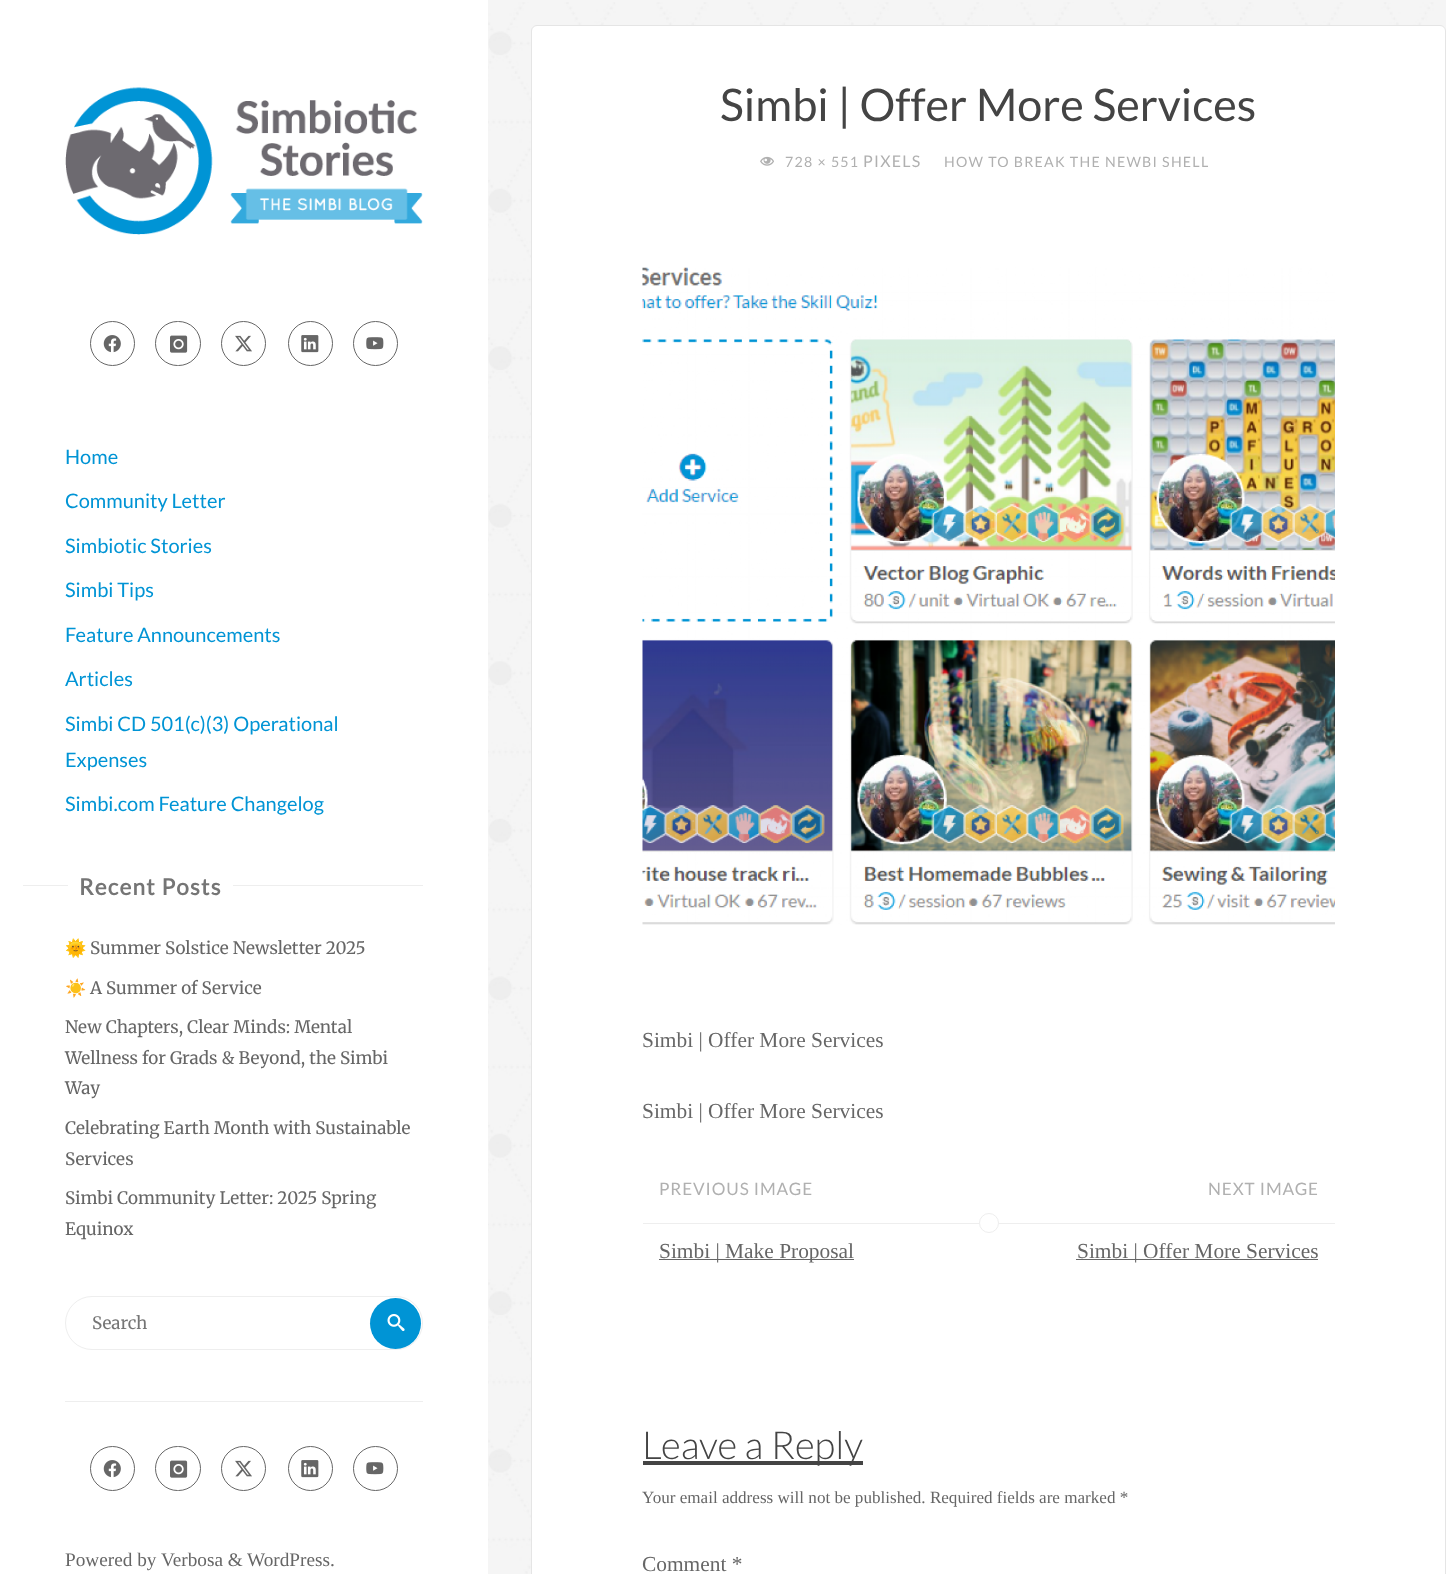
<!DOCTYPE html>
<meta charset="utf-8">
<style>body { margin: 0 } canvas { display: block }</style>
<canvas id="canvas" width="1446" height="1574"></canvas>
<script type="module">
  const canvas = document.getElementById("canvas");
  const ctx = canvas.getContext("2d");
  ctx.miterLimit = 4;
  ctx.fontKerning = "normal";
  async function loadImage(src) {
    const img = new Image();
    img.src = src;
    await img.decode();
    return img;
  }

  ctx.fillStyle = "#f5f5f5";
  ctx.fillRect(0, 0, 1446, 1574);
  ctx.drawImage(await loadImage("img1.png"), 488, 2, 958, 1572);
  ctx.fillStyle = "#ffffff";
  ctx.fillRect(0, 0, 488, 1574);
  ctx.drawImage(await loadImage("img2.png"), 65, 87, 358, 148);
  ctx.beginPath();
  ctx.arc(112.5, 343.5, 22, 0, Math.PI * 2);
  ctx.strokeStyle = "#666666";
  ctx.stroke();
  ctx.drawImage(await loadImage("img3.png"), 103, 335, 18, 18);
  ctx.beginPath();
  ctx.roundRect(155.5, 321.5, 45, 44, 22);
  ctx.stroke();
  ctx.drawImage(await loadImage("img4.png"), 170, 335, 18, 18);
  ctx.beginPath();
  ctx.arc(243.5, 343.5, 22, 0, Math.PI * 2);
  ctx.stroke();
  ctx.drawImage(await loadImage("img5.png"), 235, 335, 17, 17);
  ctx.beginPath();
  ctx.arc(310.5, 343.5, 22, 0, Math.PI * 2);
  ctx.stroke();
  ctx.drawImage(await loadImage("img6.png"), 301, 335, 18, 18);
  ctx.beginPath();
  ctx.arc(375.5, 343.5, 22, 0, Math.PI * 2);
  ctx.stroke();
  ctx.drawImage(await loadImage("img7.png"), 366, 337, 18, 13);
  ctx.font = "20px Lato";
  ctx.fillStyle = "#0094d5";
  ctx.fillText("Home", 65, 464);
  ctx.fillText("Community Letter", 65, 508);
  ctx.fillText("Simbiotic Stories", 65, 553);
  ctx.fillText("Simbi Tips", 65, 597);
  ctx.fillText("Feature Announcements", 65, 642);
  ctx.fillText("Articles", 65, 686);
  ctx.fillText("Simbi CD 501(c)(3) Operational", 65, 731);
  ctx.fillText("Expenses", 65, 767);
  ctx.fillText("Simbi.com Feature Changelog", 65, 811);
  ctx.fillStyle = "#eeeeee";
  ctx.fillRect(23, 885, 400, 1);
  ctx.fillStyle = "#ffffff";
  ctx.fillRect(68, 885, 165, 1);
  ctx.letterSpacing = "1.25px";
  ctx.font = "bold 22.5px Lato";
  ctx.fillStyle = "#757575";
  ctx.fillText("Recent Posts", 79, 895);
  ctx.letterSpacing = "0px";
  ctx.font = "17.1px Noto Color Emoji";
  ctx.fillStyle = "#666666";
  ctx.fillText("🌞", 65, 954);
  ctx.font = "17.1px Merriweather";
  ctx.fillText("Summer Solstice Newsletter 2025", 90, 954);
  ctx.font = "17.1px Noto Color Emoji";
  ctx.fillText("☀️", 65, 994);
  ctx.font = "17.1px Merriweather";
  ctx.fillText("A Summer of Service", 90, 994);
  ctx.fillText("New Chapters, Clear Minds: Mental", 65, 1033);
  ctx.fillText("Wellness for Grads & Beyond, the Simbi", 65, 1064);
  ctx.fillText("Way", 65, 1094);
  ctx.fillText("Celebrating Earth Month with Sustainable", 65, 1134);
  ctx.fillText("Services", 65, 1165);
  ctx.fillText("Simbi Community Letter: 2025 Spring", 65, 1204);
  ctx.fillText("Equinox", 65, 1235);
  ctx.beginPath();
  ctx.roundRect(65.5, 1296.5, 357, 53, 26.5);
  ctx.strokeStyle = "#eeeeee";
  ctx.stroke();
  ctx.fillStyle = "#757575";
  ctx.fillText("Search", 92, 1329);
  ctx.fillStyle = "#0094d5";
  ctx.beginPath();
  ctx.arc(395.5, 1323.5, 25.5, 0, Math.PI * 2);
  ctx.fill();
  ctx.drawImage(await loadImage("img8.png"), 387, 1314, 18, 18);
  ctx.fillStyle = "#eeeeee";
  ctx.fillRect(65, 1401, 358, 1);
  ctx.beginPath();
  ctx.arc(112.5, 1468.5, 22, 0, Math.PI * 2);
  ctx.strokeStyle = "#666666";
  ctx.stroke();
  ctx.drawImage(await loadImage("img3.png"), 103, 1460, 18, 18);
  ctx.beginPath();
  ctx.roundRect(155.5, 1446.5, 45, 44, 22);
  ctx.stroke();
  ctx.drawImage(await loadImage("img4.png"), 170, 1460, 18, 18);
  ctx.beginPath();
  ctx.arc(243.5, 1468.5, 22, 0, Math.PI * 2);
  ctx.stroke();
  ctx.drawImage(await loadImage("img5.png"), 235, 1460, 17, 17);
  ctx.beginPath();
  ctx.arc(310.5, 1468.5, 22, 0, Math.PI * 2);
  ctx.stroke();
  ctx.drawImage(await loadImage("img6.png"), 301, 1460, 18, 18);
  ctx.beginPath();
  ctx.arc(375.5, 1468.5, 22, 0, Math.PI * 2);
  ctx.stroke();
  ctx.drawImage(await loadImage("img7.png"), 366, 1462, 18, 13);
  ctx.font = "19.25px Liberation Serif";
  ctx.fillStyle = "#666666";
  ctx.fillText("Powered by", 65, 1566);
  ctx.fillText("Verbosa &", 161, 1566);
  ctx.fillText("WordPress.", 247, 1566);
  ctx.fillStyle = "#ffffff";
  ctx.beginPath();
  ctx.roundRect(531.5, 25.5, 914, 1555, 5.5);
  ctx.fill();
  ctx.strokeStyle = "#e5e5e5";
  ctx.stroke();
  ctx.font = "44.9px Lato";
  ctx.fillStyle = "#444444";
  ctx.fillText("Simbi | Offer More Services", 720, 121);
  ctx.drawImage(await loadImage("img9.png"), 760, 156, 14, 10);
  ctx.letterSpacing = "1.25px";
  ctx.font = "14.2px Lato";
  ctx.fillStyle = "#b0b0b0";
  ctx.fillText("728 × 551", 785, 167);
  ctx.font = "16px Lato";
  ctx.fillText("PIXELS", 863, 167);
  ctx.font = "14.2px Lato";
  ctx.fillText("HOW TO BREAK THE NEWBI SHELL", 944, 167);
  ctx.drawImage(await loadImage("img10.png"), 642, 267, 693, 658);
  ctx.letterSpacing = "0px";
  ctx.font = "21.4px Liberation Serif";
  ctx.fillStyle = "#666666";
  ctx.fillText("Simbi | Offer More Services", 642, 1047);
  ctx.fillText("Simbi | Offer More Services", 642, 1118);
  ctx.letterSpacing = "0.9px";
  ctx.font = "17.1px Lato";
  ctx.fillStyle = "#b0b0b0";
  ctx.fillText("PREVIOUS IMAGE", 659, 1195);
  ctx.fillStyle = "#eeeeee";
  ctx.fillRect(643, 1223, 337, 1);
  ctx.fillStyle = "#ffffff";
  ctx.beginPath();
  ctx.roundRect(979, 1213, 10, 20, [10, 0, 0, 10]);
  ctx.fill();
  ctx.fillStyle = "#eeeeee";
  ctx.fillRect(998, 1223, 337, 1);
  ctx.save();
  ctx.beginPath();
  ctx.rect(643, 1174, 346, 107);
  ctx.clip();
  ctx.beginPath();
  ctx.arc(989, 1223, 9.5, 0, Math.PI * 2);
  ctx.strokeStyle = "#eeeeee";
  ctx.stroke();
  ctx.restore();
  ctx.fillStyle = "#666666";
  ctx.fillRect(659, 1259, 195, 1);
  ctx.letterSpacing = "0px";
  ctx.font = "21.4px Liberation Serif";
  ctx.fillText("Simbi | Make Proposal", 659, 1258);
  ctx.letterSpacing = "0.9px";
  ctx.font = "17.1px Lato";
  ctx.fillStyle = "#b0b0b0";
  ctx.fillText("NEXT IMAGE", 1208, 1195);
  ctx.fillStyle = "#ffffff";
  ctx.beginPath();
  ctx.roundRect(989, 1213, 10, 20, [0, 10, 10, 0]);
  ctx.fill();
  ctx.save();
  ctx.beginPath();
  ctx.rect(989, 1174, 346, 107);
  ctx.clip();
  ctx.beginPath();
  ctx.arc(989, 1223, 9.5, 0, Math.PI * 2);
  ctx.strokeStyle = "#eeeeee";
  ctx.stroke();
  ctx.restore();
  ctx.fillStyle = "#666666";
  ctx.fillRect(1076, 1259, 242, 1);
  ctx.letterSpacing = "0px";
  ctx.font = "21.4px Liberation Serif";
  ctx.fillText("Simbi | Offer More Services", 1077, 1258);
  ctx.fillStyle = "#444444";
  ctx.fillRect(643, 1461, 220, 4);
  ctx.font = "300 38.5px Lato";
  ctx.fillText("Leave a Reply", 642, 1459);
  ctx.font = "17.1px Liberation Serif";
  ctx.fillStyle = "#666666";
  ctx.fillText("Your email address will not be published. Required fields are marked *", 642, 1503);
  ctx.font = "21.4px Liberation Serif";
  ctx.fillText("Comment *", 642, 1571);
</script>
